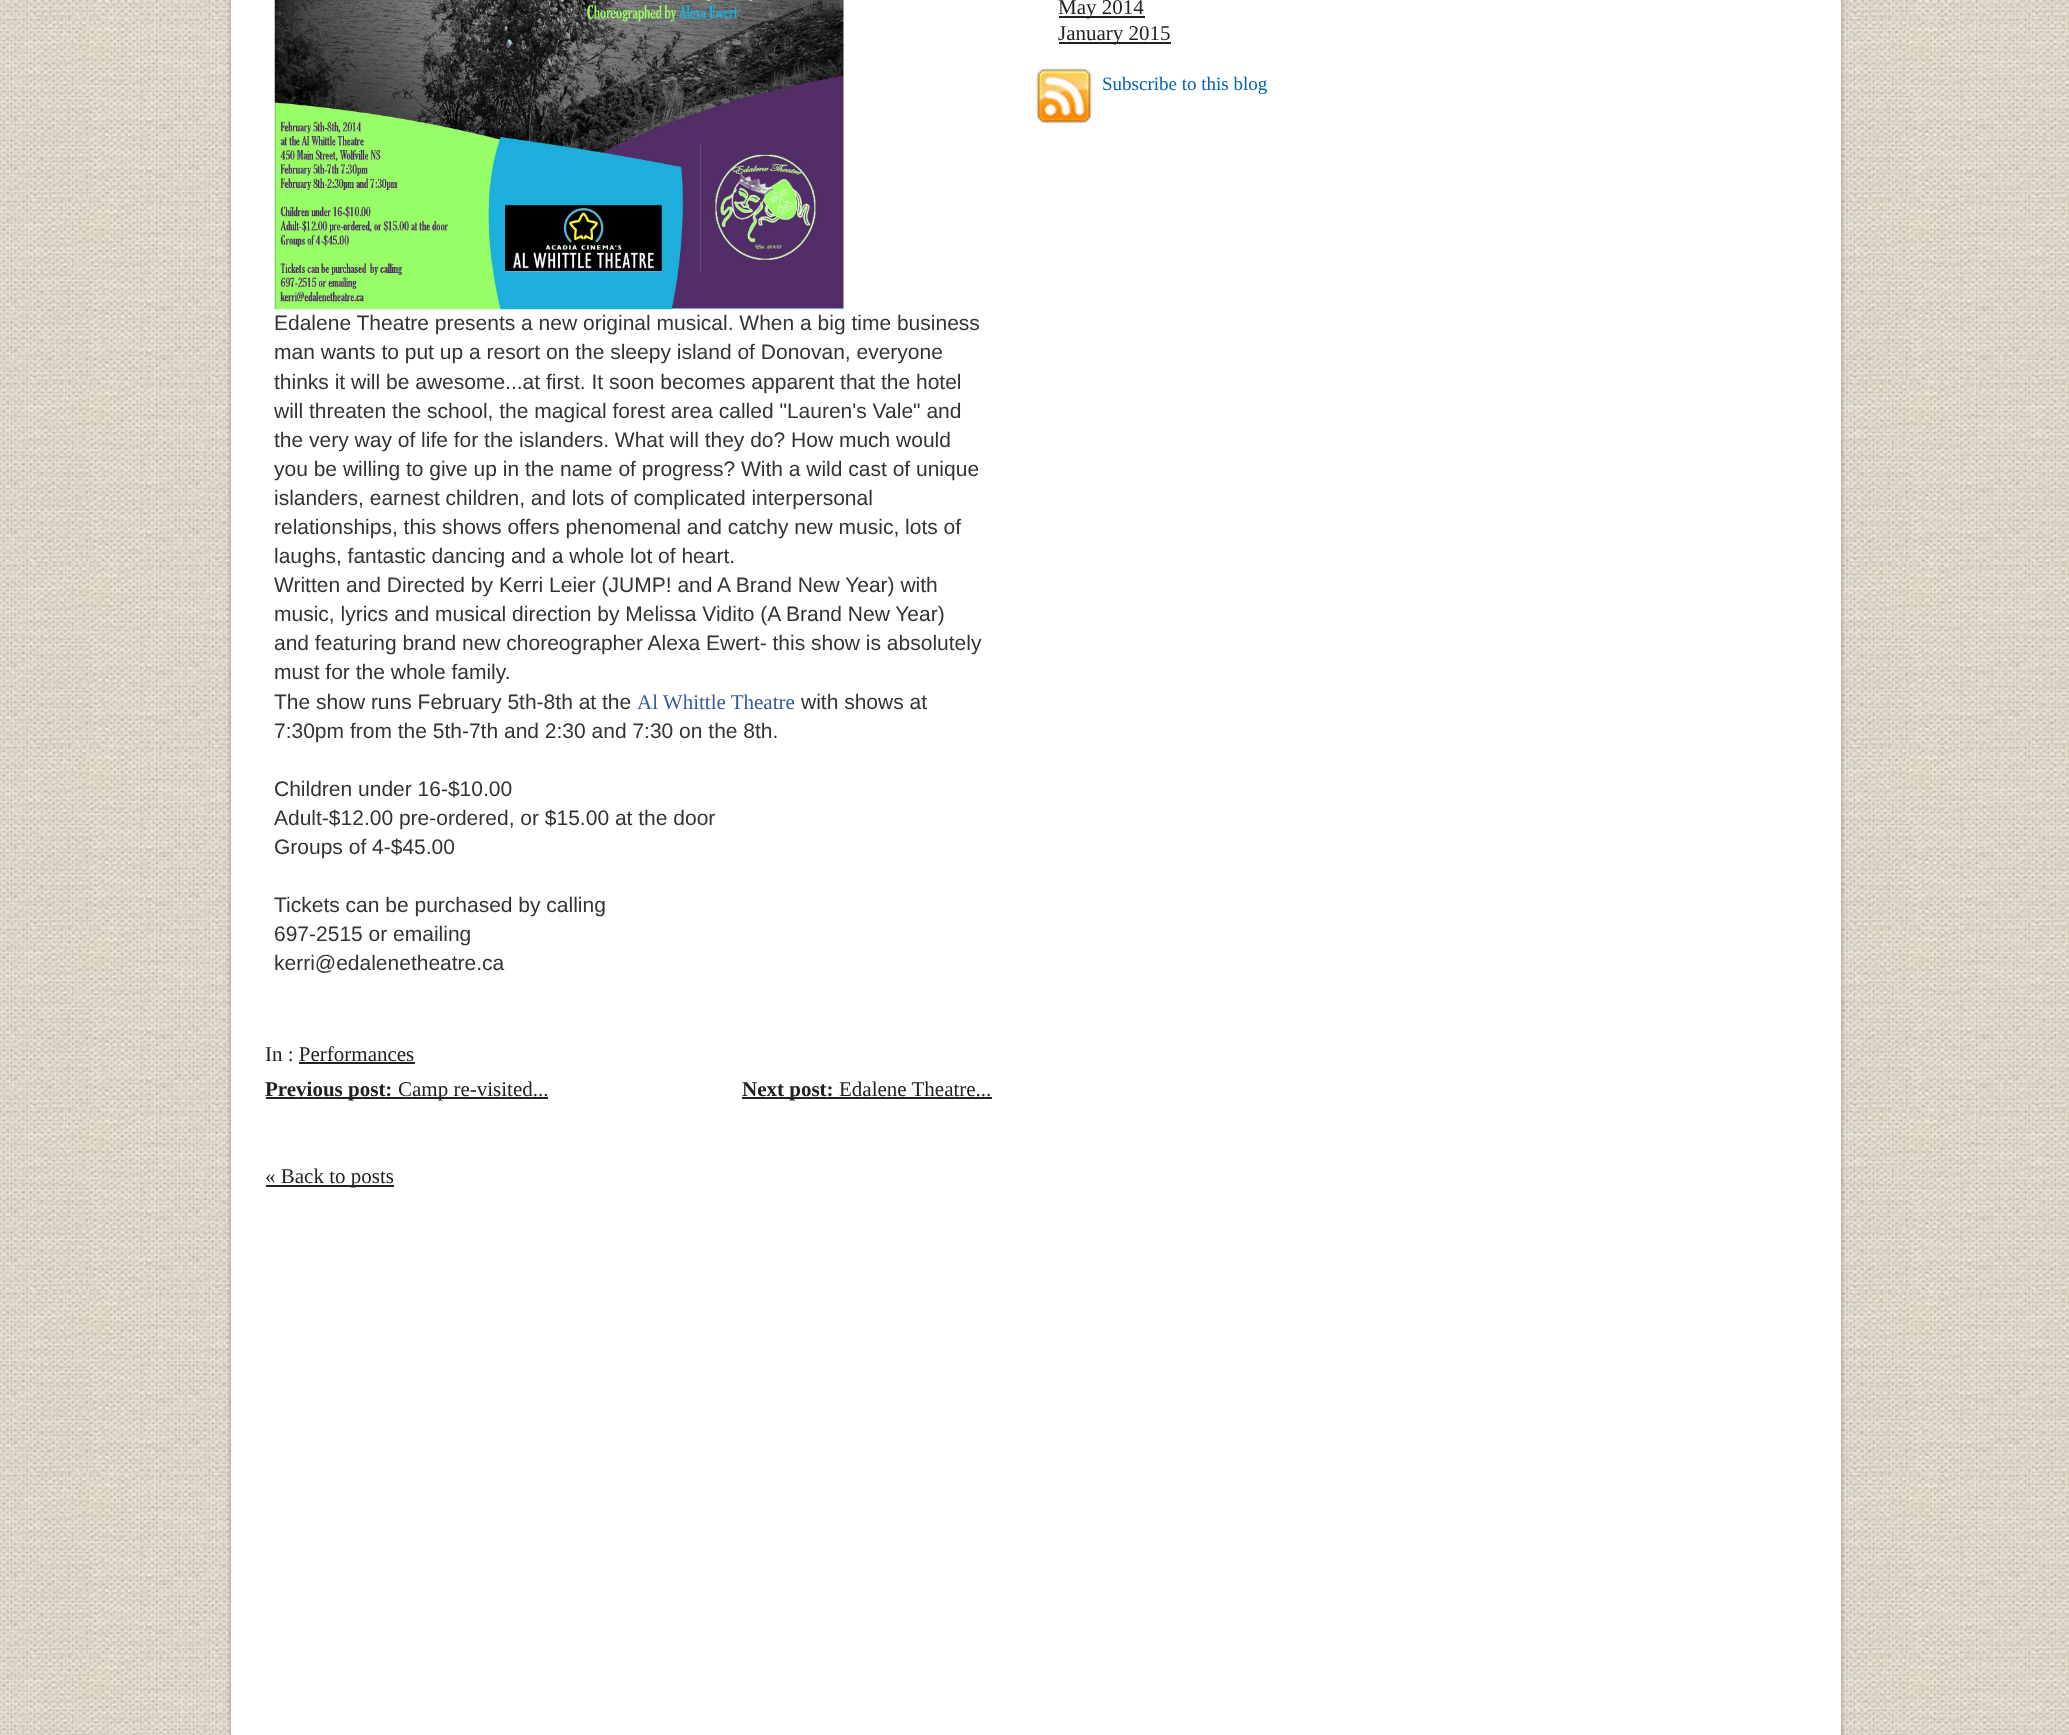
<!DOCTYPE html>
<meta charset="utf-8">
<style>body { margin: 0 } canvas { display: block }</style>
<canvas id="canvas" width="2069" height="1735"></canvas>
<script type="module">
  const canvas = document.getElementById("canvas");
  const ctx = canvas.getContext("2d");
  ctx.miterLimit = 4;
  ctx.fontKerning = "normal";
  async function loadImage(src) {
    const img = new Image();
    img.src = src;
    await img.decode();
    return img;
  }

  ctx.fillStyle = "#ffffff";
  ctx.fillRect(0, 0, 2069, 1735);
  ctx.drawImage(await loadImage("img1.png"), 0, 0, 2069, 1735);
  ctx.fillStyle = "rgba(0, 0, 0, 0.35)";
  ctx.filter = "blur(2px)";
  ctx.beginPath();
  ctx.rect(231, -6, 1610, 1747);
  ctx.fill();
  ctx.filter = "none";
  ctx.fillStyle = "#ffffff";
  ctx.fillRect(231, 0, 1610, 1735);
  ctx.fillStyle = "#222222";
  ctx.fillRect(1059, 16, 86, 2);
  ctx.font = "21px Liberation Serif";
  ctx.fillText("May 2014", 1058, 14);
  ctx.fillRect(1059, 42, 112, 2);
  ctx.fillText("January 2015", 1058, 40);
  ctx.drawImage(await loadImage("img2.png"), 1036, 68, 56, 56);
  ctx.font = "19px Liberation Serif";
  ctx.fillStyle = "#0062b5";
  ctx.fillText("Subscribe to this blog", 1102, 90);
  ctx.drawImage(await loadImage("img3.png"), 274, 0, 570, 310);
  ctx.font = "21px Liberation Sans";
  ctx.fillStyle = "#333333";
  ctx.fillText("Edalene Theatre presents a new original musical. When a big time business", 274, 330);
  ctx.fillText("man wants to put up a resort on the sleepy island of Donovan, everyone", 274, 359);
  ctx.fillText("thinks it will be awesome...at first. It soon becomes apparent that the hotel", 274, 389);
  ctx.fillText("will threaten the school, the magical forest area called \"Lauren's Vale\" and", 274, 418);
  ctx.fillText("the very way of life for the islanders. What will they do? How much would", 274, 447);
  ctx.fillText("you be willing to give up in the name of progress? With a wild cast of unique", 274, 476);
  ctx.fillText("islanders, earnest children, and lots of complicated interpersonal", 274, 505);
  ctx.fillText("relationships, this shows offers phenomenal and catchy new music, lots of", 274, 534);
  ctx.fillText("laughs, fantastic dancing and a whole lot of heart.", 274, 563);
  ctx.fillText("Written and Directed by Kerri Leier (JUMP! and A Brand New Year) with", 274, 592);
  ctx.fillText("music, lyrics and musical direction by Melissa Vidito (A Brand New Year)", 274, 621);
  ctx.fillText("and featuring brand new choreographer Alexa Ewert- this show is absolutely", 274, 650);
  ctx.fillText("must for the whole family.", 274, 679);
  ctx.fillText("The show runs February 5th-8th at the", 274, 709);
  ctx.font = "21px Liberation Serif";
  ctx.fillStyle = "#3b5998";
  ctx.fillText("Al Whittle Theatre", 637, 709);
  ctx.font = "21px Liberation Sans";
  ctx.fillStyle = "#333333";
  ctx.fillText("with shows at", 801, 709);
  ctx.fillText("7:30pm from the 5th-7th and 2:30 and 7:30 on the 8th.", 274, 738);
  ctx.fillText("Children under 16-$10.00", 274, 796);
  ctx.fillText("Adult-$12.00 pre-ordered, or $15.00 at the door", 274, 825);
  ctx.fillText("Groups of 4-$45.00", 274, 854);
  ctx.fillText("Tickets can be purchased by calling", 274, 912);
  ctx.fillText("697-2515 or emailing", 274, 941);
  ctx.fillText("kerri@edalenetheatre.ca", 274, 970);
  ctx.font = "21px Liberation Serif";
  ctx.fillStyle = "#222222";
  ctx.fillText("In : Performances", 265, 1061);
  ctx.fillRect(299, 1062, 116, 2);
  ctx.fillRect(266, 1097, 282, 2);
  ctx.font = "bold 21px Liberation Serif";
  ctx.fillText("Previous post:", 265, 1096);
  ctx.font = "21px Liberation Serif";
  ctx.fillText("Camp re-visited...", 398, 1096);
  ctx.fillRect(742, 1097, 250, 2);
  ctx.font = "bold 21px Liberation Serif";
  ctx.fillText("Next post:", 742, 1096);
  ctx.font = "21px Liberation Serif";
  ctx.fillText("Edalene Theatre...", 839, 1096);
  ctx.fillRect(266, 1185, 128, 2);
  ctx.fillText("« Back to posts", 265, 1183);
</script>
